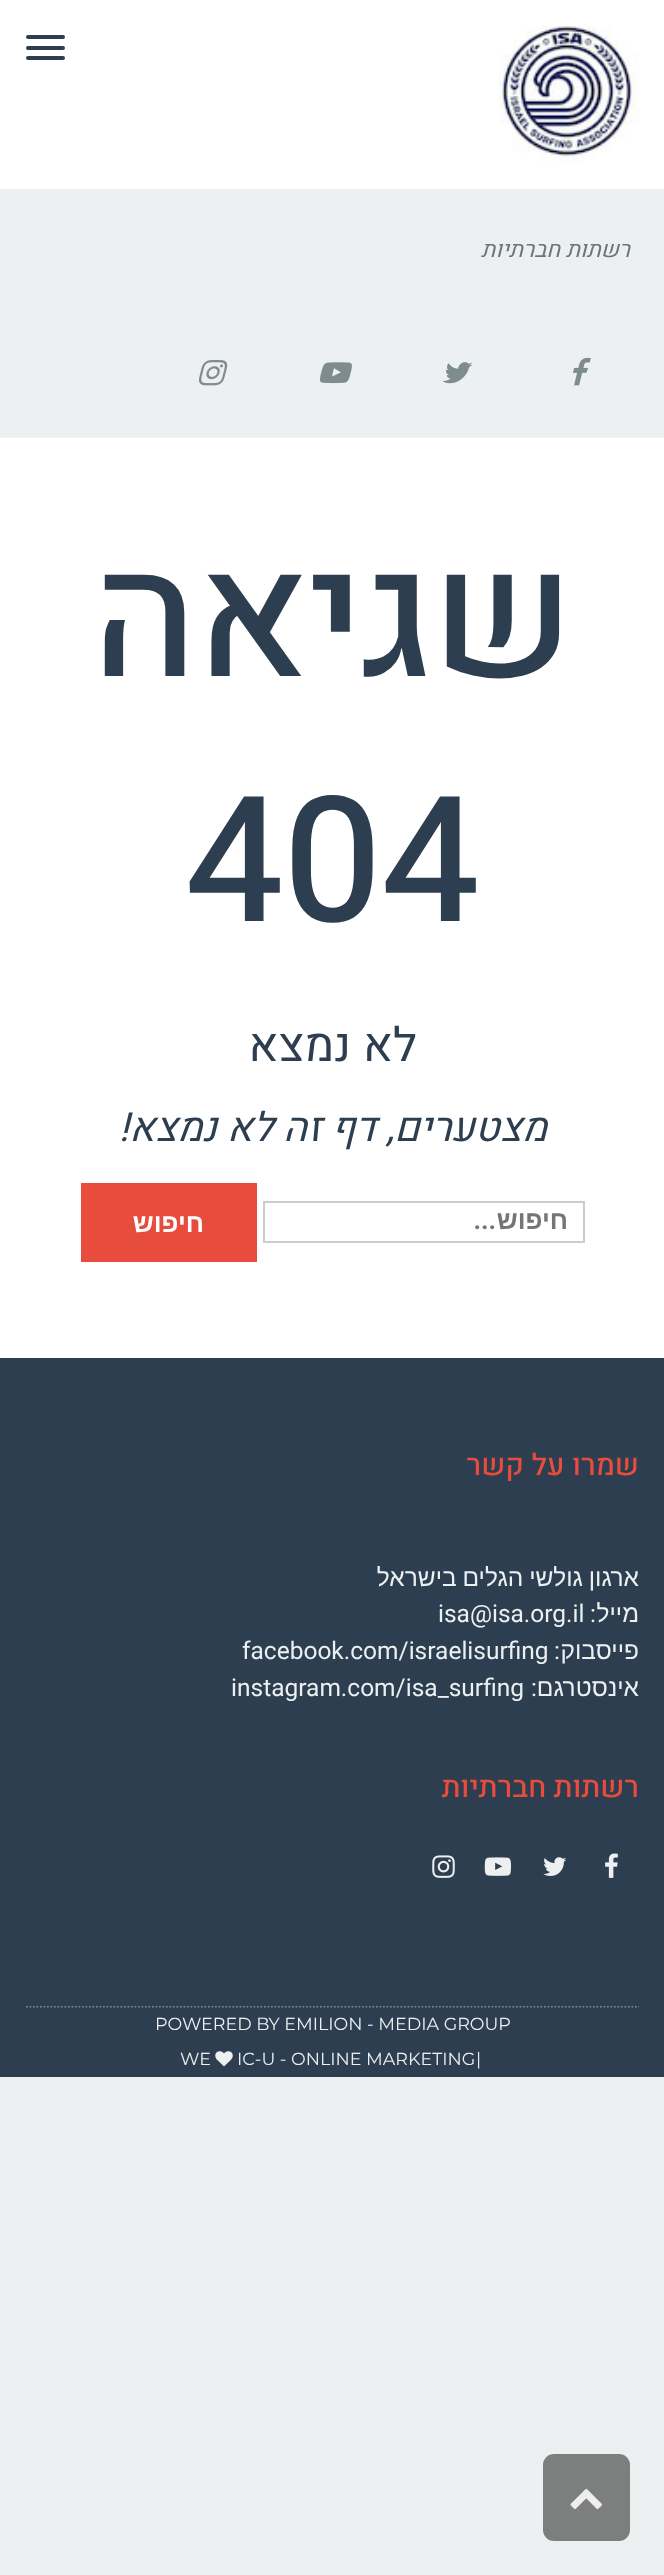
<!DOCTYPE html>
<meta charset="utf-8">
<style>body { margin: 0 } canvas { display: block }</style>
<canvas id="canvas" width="664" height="2575"></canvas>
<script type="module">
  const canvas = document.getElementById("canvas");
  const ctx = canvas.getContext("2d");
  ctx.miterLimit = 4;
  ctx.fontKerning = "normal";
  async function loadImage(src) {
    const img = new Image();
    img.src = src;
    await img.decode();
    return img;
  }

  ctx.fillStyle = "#ecf0f1";
  ctx.fillRect(0, 0, 664, 2575);
  ctx.fillStyle = "#ffffff";
  ctx.fillRect(0, 0, 664, 189);
  ctx.drawImage(await loadImage("img1.png"), 499, 26, 140, 137);
  ctx.fillStyle = "#2c3e50";
  ctx.beginPath();
  ctx.roundRect(26, 35, 39, 4, 2);
  ctx.fill();
  ctx.beginPath();
  ctx.roundRect(26, 46, 39, 4, 2);
  ctx.fill();
  ctx.beginPath();
  ctx.roundRect(26, 56, 39, 4, 2);
  ctx.fill();
  ctx.direction = "rtl";
  ctx.font = "italic 22.75px Heebo";
  ctx.fillStyle = "#6b7677";
  ctx.fillText("רשתות חברתיות", 630, 257);
  ctx.drawImage(await loadImage("img2.png"), 573, 357, 18, 29);
  ctx.drawImage(await loadImage("img3.png"), 442, 362, 31, 22);
  ctx.drawImage(await loadImage("img4.png"), 320, 362, 32, 22);
  ctx.drawImage(await loadImage("img5.png"), 199, 360, 29, 26);
  ctx.fillStyle = "#ffffff";
  ctx.fillRect(0, 438, 664, 920);
  ctx.letterSpacing = "-1px";
  ctx.font = "500 175px Heebo";
  ctx.fillStyle = "#2c3e50";
  ctx.fillText("שגיאה", 573, 676);
  ctx.direction = "ltr";
  ctx.fillText("404", 185, 921);
  ctx.letterSpacing = "0px";
  ctx.direction = "rtl";
  ctx.font = "47px Heebo";
  ctx.fillText("לא נמצא", 417, 1061);
  ctx.font = "italic 40.25px Heebo";
  ctx.fillText("מצטערים, דף זה לא נמצא!", 547, 1141);
  ctx.strokeStyle = "#cccccc";
  ctx.lineWidth = 2;
  ctx.strokeRect(264, 1202, 320, 40);
  ctx.font = "bold 26px Liberation Sans";
  ctx.fillStyle = "#757575";
  ctx.fillText("חיפוש", 568, 1229);
  ctx.font = "bold 26px Roboto";
  ctx.fillText("...", 496, 1229);
  ctx.fillStyle = "#e74c3c";
  ctx.fillRect(81, 1183, 176, 79);
  ctx.font = "bold 26px Liberation Sans";
  ctx.fillStyle = "#ffffff";
  ctx.fillText("חיפוש", 204, 1232);
  ctx.fillStyle = "#2c3e50";
  ctx.fillRect(0, 1358, 664, 719);
  ctx.font = "500 29.75px Heebo";
  ctx.fillStyle = "#e74c3c";
  ctx.fillText("שמרו על קשר", 639, 1475);
  ctx.wordSpacing = "-1px";
  ctx.font = "24.5px Liberation Sans";
  ctx.fillStyle = "#ecf0f1";
  ctx.fillText("ארגון גולשי הגלים בישראל", 639, 1586);
  ctx.wordSpacing = "0px";
  ctx.fillText("מייל", 639, 1622);
  ctx.font = "24.5px Roboto";
  ctx.fillText(":", 596, 1622);
  ctx.direction = "ltr";
  ctx.fillText("isa@isa.org.il", 438, 1622);
  ctx.direction = "rtl";
  ctx.font = "24.5px Liberation Sans";
  ctx.fillText("פייסבוק", 639, 1659);
  ctx.font = "24.5px Roboto";
  ctx.fillText(":", 560, 1659);
  ctx.direction = "ltr";
  ctx.fillText("facebook.com/israelisurfing", 242, 1659);
  ctx.direction = "rtl";
  ctx.font = "24.5px Liberation Sans";
  ctx.fillText("אינסטרגם", 639, 1696);
  ctx.font = "24.5px Roboto";
  ctx.fillText(":", 537, 1696);
  ctx.direction = "ltr";
  ctx.fillText("instagram.com/isa_surfing", 231, 1696);
  ctx.direction = "rtl";
  ctx.font = "500 29.75px Heebo";
  ctx.fillStyle = "#e74c3c";
  ctx.fillText("רשתות חברתיות", 639, 1797);
  ctx.drawImage(await loadImage("img6.png"), 605, 1853, 13, 25);
  ctx.drawImage(await loadImage("img7.png"), 543, 1857, 24, 19);
  ctx.drawImage(await loadImage("img8.png"), 484, 1857, 27, 19);
  ctx.drawImage(await loadImage("img9.png"), 432, 1855, 23, 23);
  ctx.save();
  ctx.beginPath();
  ctx.rect(0, 2006, 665, 71);
  ctx.clip();
  ctx.beginPath();
  ctx.moveTo(26, 2006.5);
  ctx.lineTo(639, 2006.5);
  ctx.strokeStyle = "#7f8c8d";
  ctx.lineWidth = 1.8;
  ctx.setLineDash([1.75, 1.75]);
  ctx.stroke();
  ctx.restore();
  ctx.direction = "ltr";
  ctx.font = "17.5px Montserrat";
  ctx.fillStyle = "#ecf0f1";
  ctx.fillText("POWERED BY EMILION - MEDIA GROUP", 155, 2030);
  ctx.fillText("|", 476, 2065);
  ctx.fillText("IC-U - ONLINE MARKETING", 237, 2065);
  ctx.drawImage(await loadImage("img10.png"), 215, 2051, 18, 16);
  ctx.fillText("WE", 180, 2065);
  ctx.fillStyle = "#7d7f7f";
  ctx.beginPath();
  ctx.roundRect(543, 2454, 87, 87, 11);
  ctx.fill();
  ctx.drawImage(await loadImage("img11.png"), 570, 2488, 32, 22);
</script>
